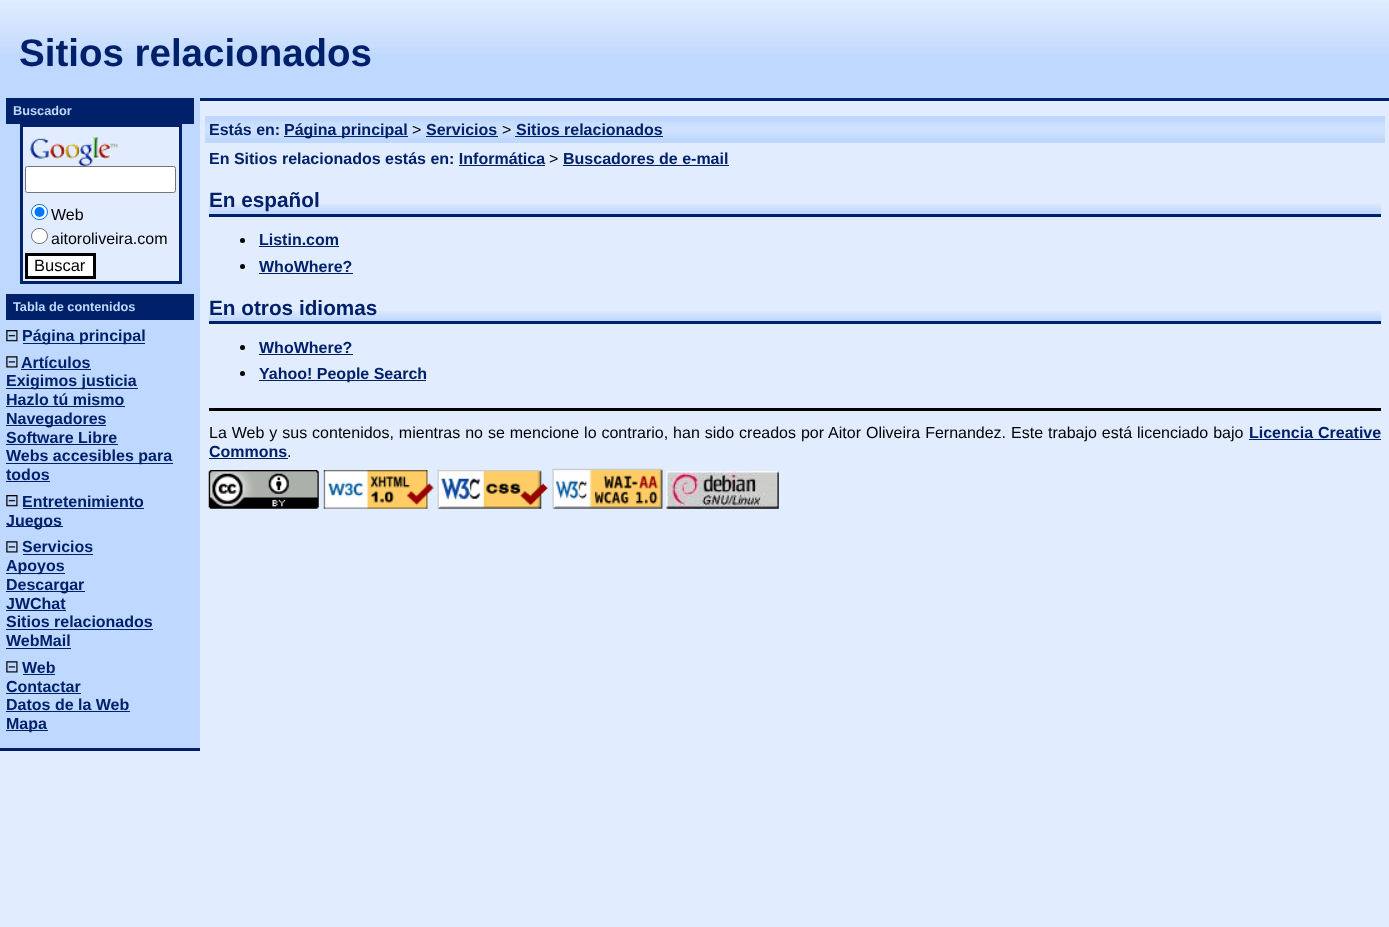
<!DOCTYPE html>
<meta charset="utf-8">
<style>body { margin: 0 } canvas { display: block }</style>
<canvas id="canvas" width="1389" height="927"></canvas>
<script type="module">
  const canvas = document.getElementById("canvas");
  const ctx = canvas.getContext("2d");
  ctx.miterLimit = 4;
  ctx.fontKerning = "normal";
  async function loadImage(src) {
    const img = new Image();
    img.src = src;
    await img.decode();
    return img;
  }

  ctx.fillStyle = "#e1ecff";
  ctx.fillRect(0, 0, 1389, 927);
  ctx.fillStyle = "#bfd8ff";
  ctx.fillRect(200, 54, 1189, 44);
  ctx.drawImage(await loadImage("img1.png"), 200, 0, 1189, 54);
  ctx.fillStyle = "#00216a";
  ctx.fillRect(200, 98, 1189, 3);
  ctx.fillStyle = "#bfd8ff";
  ctx.fillRect(0, 54, 200, 694);
  ctx.drawImage(await loadImage("img2.png"), 0, 0, 200, 54);
  ctx.font = "bold 38.5px Liberation Sans";
  ctx.fillStyle = "#00216a";
  ctx.fillText("Sitios relacionados", 19, 66);
  ctx.fillRect(0, 748, 200, 3);
  ctx.fillRect(6, 98, 188, 26);
  ctx.font = "bold 12.75px Liberation Sans";
  ctx.fillStyle = "#bfd8ff";
  ctx.fillText("Buscador", 13, 115);
  ctx.fillStyle = "#e1ecff";
  ctx.fillRect(23, 127, 156, 154);
  ctx.fillStyle = "#00216a";
  ctx.fillRect(20, 124, 161, 3);
  ctx.fillRect(179, 124, 3, 160);
  ctx.fillRect(20, 281, 161, 3);
  ctx.fillRect(20, 124, 3, 160);
  ctx.drawImage(await loadImage("img3.png"), 29, 137, 89, 29);
  ctx.fillStyle = "#ffffff";
  ctx.beginPath();
  ctx.roundRect(25.5, 166.5, 150, 26, 2);
  ctx.fill();
  ctx.strokeStyle = "#767676";
  ctx.stroke();
  ctx.beginPath();
  ctx.roundRect(31.5, 204.5, 16, 15, 7.5);
  ctx.fill();
  ctx.strokeStyle = "#0075ff";
  ctx.stroke();
  ctx.fillStyle = "#0075ff";
  ctx.beginPath();
  ctx.arc(39.5, 212, 5, 0, Math.PI * 2);
  ctx.fill();
  ctx.font = "16px Liberation Sans";
  ctx.fillStyle = "#000000";
  ctx.fillText("Web", 51, 220);
  ctx.fillStyle = "#ffffff";
  ctx.beginPath();
  ctx.roundRect(31.5, 228.5, 16, 15, 7.5);
  ctx.fill();
  ctx.strokeStyle = "#767676";
  ctx.stroke();
  ctx.fillStyle = "#000000";
  ctx.fillText("aitoroliveira.com", 51, 244);
  ctx.fillStyle = "#ffffff";
  ctx.beginPath();
  ctx.rect(26.5, 254.5, 68, 23);
  ctx.fill();
  ctx.strokeStyle = "#000000";
  ctx.lineWidth = 3;
  ctx.stroke();
  ctx.font = "16.5px Liberation Sans";
  ctx.fillStyle = "#000000";
  ctx.fillText("Buscar", 34, 271);
  ctx.fillStyle = "#00216a";
  ctx.fillRect(6, 294, 188, 26);
  ctx.font = "bold 12.75px Liberation Sans";
  ctx.fillStyle = "#bfd8ff";
  ctx.fillText("Tabla de contenidos", 13, 311);
  ctx.drawImage(await loadImage("img4.png"), 6, 330, 12, 12);
  ctx.fillStyle = "#00216a";
  ctx.fillRect(23, 343, 122, 1);
  ctx.font = "bold 16px Liberation Sans";
  ctx.fillText("Página principal", 22, 341);
  ctx.drawImage(await loadImage("img5.png"), 6, 356, 12, 12);
  ctx.fillText("Artículos", 21, 368);
  ctx.fillRect(21, 369, 70, 1);
  ctx.fillRect(6, 388, 132, 1);
  ctx.fillText("Exigimos justicia", 6, 386);
  ctx.fillText("Hazlo tú mismo", 6, 405);
  ctx.fillRect(6, 406, 119, 1);
  ctx.fillRect(6, 425, 100, 1);
  ctx.fillText("Navegadores", 6, 424);
  ctx.fillText("Software Libre", 6, 443);
  ctx.fillRect(6, 444, 112, 1);
  ctx.fillRect(6, 463, 167, 1);
  ctx.fillText("Webs accesibles para", 6, 461);
  ctx.fillText("todos", 6, 480);
  ctx.fillRect(6, 481, 44, 1);
  ctx.drawImage(await loadImage("img4.png"), 6, 495, 12, 12);
  ctx.fillText("Entretenimiento", 22, 507);
  ctx.fillRect(23, 508, 121, 1);
  ctx.fillRect(6, 526, 57, 1);
  ctx.fillText("Juegos", 6, 526);
  ctx.drawImage(await loadImage("img5.png"), 6, 541, 12, 12);
  ctx.fillText("Servicios", 22, 552);
  ctx.fillRect(23, 554, 70, 1);
  ctx.fillRect(6, 573, 59, 1);
  ctx.fillText("Apoyos", 6, 571);
  ctx.fillRect(6, 591, 79, 1);
  ctx.fillText("Descargar", 6, 590);
  ctx.fillText("JWChat", 6, 609);
  ctx.fillRect(6, 610, 60, 1);
  ctx.fillText("Sitios relacionados", 6, 627);
  ctx.fillRect(6, 629, 147, 1);
  ctx.fillText("WebMail", 6, 646);
  ctx.fillRect(6, 648, 65, 1);
  ctx.drawImage(await loadImage("img5.png"), 6, 661, 12, 12);
  ctx.fillText("Web", 22, 673);
  ctx.fillRect(23, 674, 32, 1);
  ctx.fillText("Contactar", 6, 692);
  ctx.fillRect(6, 693, 75, 1);
  ctx.fillText("Datos de la Web", 6, 710);
  ctx.fillRect(6, 711, 124, 1);
  ctx.fillRect(6, 730, 42, 1);
  ctx.fillText("Mapa", 6, 729);
  ctx.fillStyle = "#bfd8ff";
  ctx.fillRect(205, 116, 1180, 27);
  ctx.drawImage(await loadImage("img6.png"), 205, 121, 1180, 17);
  ctx.fillStyle = "#00216a";
  ctx.fillText("Estás en:", 209, 135);
  ctx.fillRect(284, 136, 124, 1);
  ctx.fillText("Página principal", 284, 135);
  ctx.font = "16px Liberation Sans";
  ctx.fillStyle = "#000000";
  ctx.fillText(">", 412, 135);
  ctx.font = "bold 16px Liberation Sans";
  ctx.fillStyle = "#00216a";
  ctx.fillText("Servicios", 426, 135);
  ctx.fillRect(426, 136, 72, 1);
  ctx.font = "16px Liberation Sans";
  ctx.fillStyle = "#000000";
  ctx.fillText(">", 502, 135);
  ctx.font = "bold 16px Liberation Sans";
  ctx.fillStyle = "#00216a";
  ctx.fillText("Sitios relacionados", 516, 135);
  ctx.fillRect(515, 136, 148, 1);
  ctx.fillText("En Sitios relacionados estás en: Informática", 209, 164);
  ctx.font = "16px Liberation Sans";
  ctx.fillStyle = "#000000";
  ctx.fillText(">", 549, 164);
  ctx.font = "bold 16px Liberation Sans";
  ctx.fillStyle = "#00216a";
  ctx.fillText("Buscadores de e-mail", 563, 164);
  ctx.fillRect(563, 165, 166, 1);
  ctx.fillRect(459, 165, 86, 1);
  ctx.drawImage(await loadImage("img7.png"), 208, 203, 1174, 11);
  ctx.fillRect(209, 214, 1172, 3);
  ctx.font = "bold 20.75px Liberation Sans";
  ctx.fillText("En español", 209, 207);
  ctx.fillStyle = "#000000";
  ctx.beginPath();
  ctx.arc(242.5, 240.5, 2.5, 0, Math.PI * 2);
  ctx.fill();
  ctx.font = "bold 16px Liberation Sans";
  ctx.fillStyle = "#00216a";
  ctx.fillText("Listin.com", 259, 245);
  ctx.fillRect(259, 246, 80, 1);
  ctx.fillStyle = "#000000";
  ctx.beginPath();
  ctx.arc(242.5, 266.5, 2.5, 0, Math.PI * 2);
  ctx.fill();
  ctx.fillStyle = "#00216a";
  ctx.fillText("WhoWhere?", 259, 272);
  ctx.fillRect(259, 273, 94, 1);
  ctx.drawImage(await loadImage("img8.png"), 208, 311, 1174, 11);
  ctx.fillRect(209, 321, 1172, 3);
  ctx.font = "bold 20.75px Liberation Sans";
  ctx.fillText("En otros idiomas", 209, 315);
  ctx.fillStyle = "#000000";
  ctx.beginPath();
  ctx.arc(242.5, 347.5, 2.5, 0, Math.PI * 2);
  ctx.fill();
  ctx.font = "bold 16px Liberation Sans";
  ctx.fillStyle = "#00216a";
  ctx.fillText("WhoWhere?", 259, 353);
  ctx.fillRect(259, 354, 94, 1);
  ctx.fillStyle = "#000000";
  ctx.beginPath();
  ctx.arc(242.5, 373.5, 2.5, 0, Math.PI * 2);
  ctx.fill();
  ctx.fillStyle = "#00216a";
  ctx.fillRect(259, 380, 167, 1);
  ctx.fillText("Yahoo! People Search", 259, 379);
  ctx.fillStyle = "#000000";
  ctx.fillRect(209, 408, 1172, 3);
  ctx.wordSpacing = "0.5px";
  ctx.font = "16px Liberation Sans";
  ctx.fillText("La Web y sus contenidos, mientras no se mencione lo contrario, han sido creados por Aitor Oliveira Fernandez. Este trabajo está licenciado bajo", 209, 438);
  ctx.wordSpacing = "0px";
  ctx.font = "bold 16px Liberation Sans";
  ctx.fillStyle = "#00216a";
  ctx.fillText("Licencia", 1249, 438);
  ctx.fillRect(1249, 439, 132, 1);
  ctx.fillText("Creative", 1318, 438);
  ctx.fillText("Commons", 209, 457);
  ctx.fillRect(209, 458, 79, 1);
  ctx.font = "16px Liberation Sans";
  ctx.fillStyle = "#000000";
  ctx.fillText(".", 287, 457);
  ctx.drawImage(await loadImage("img9.png"), 208, 470, 111, 39);
  ctx.drawImage(await loadImage("img10.png"), 323, 470, 111, 39);
  ctx.drawImage(await loadImage("img11.png"), 437, 470, 111, 39);
  ctx.drawImage(await loadImage("img12.png"), 552, 468, 111, 41);
  ctx.drawImage(await loadImage("img13.png"), 666, 471, 113, 38);
</script>
